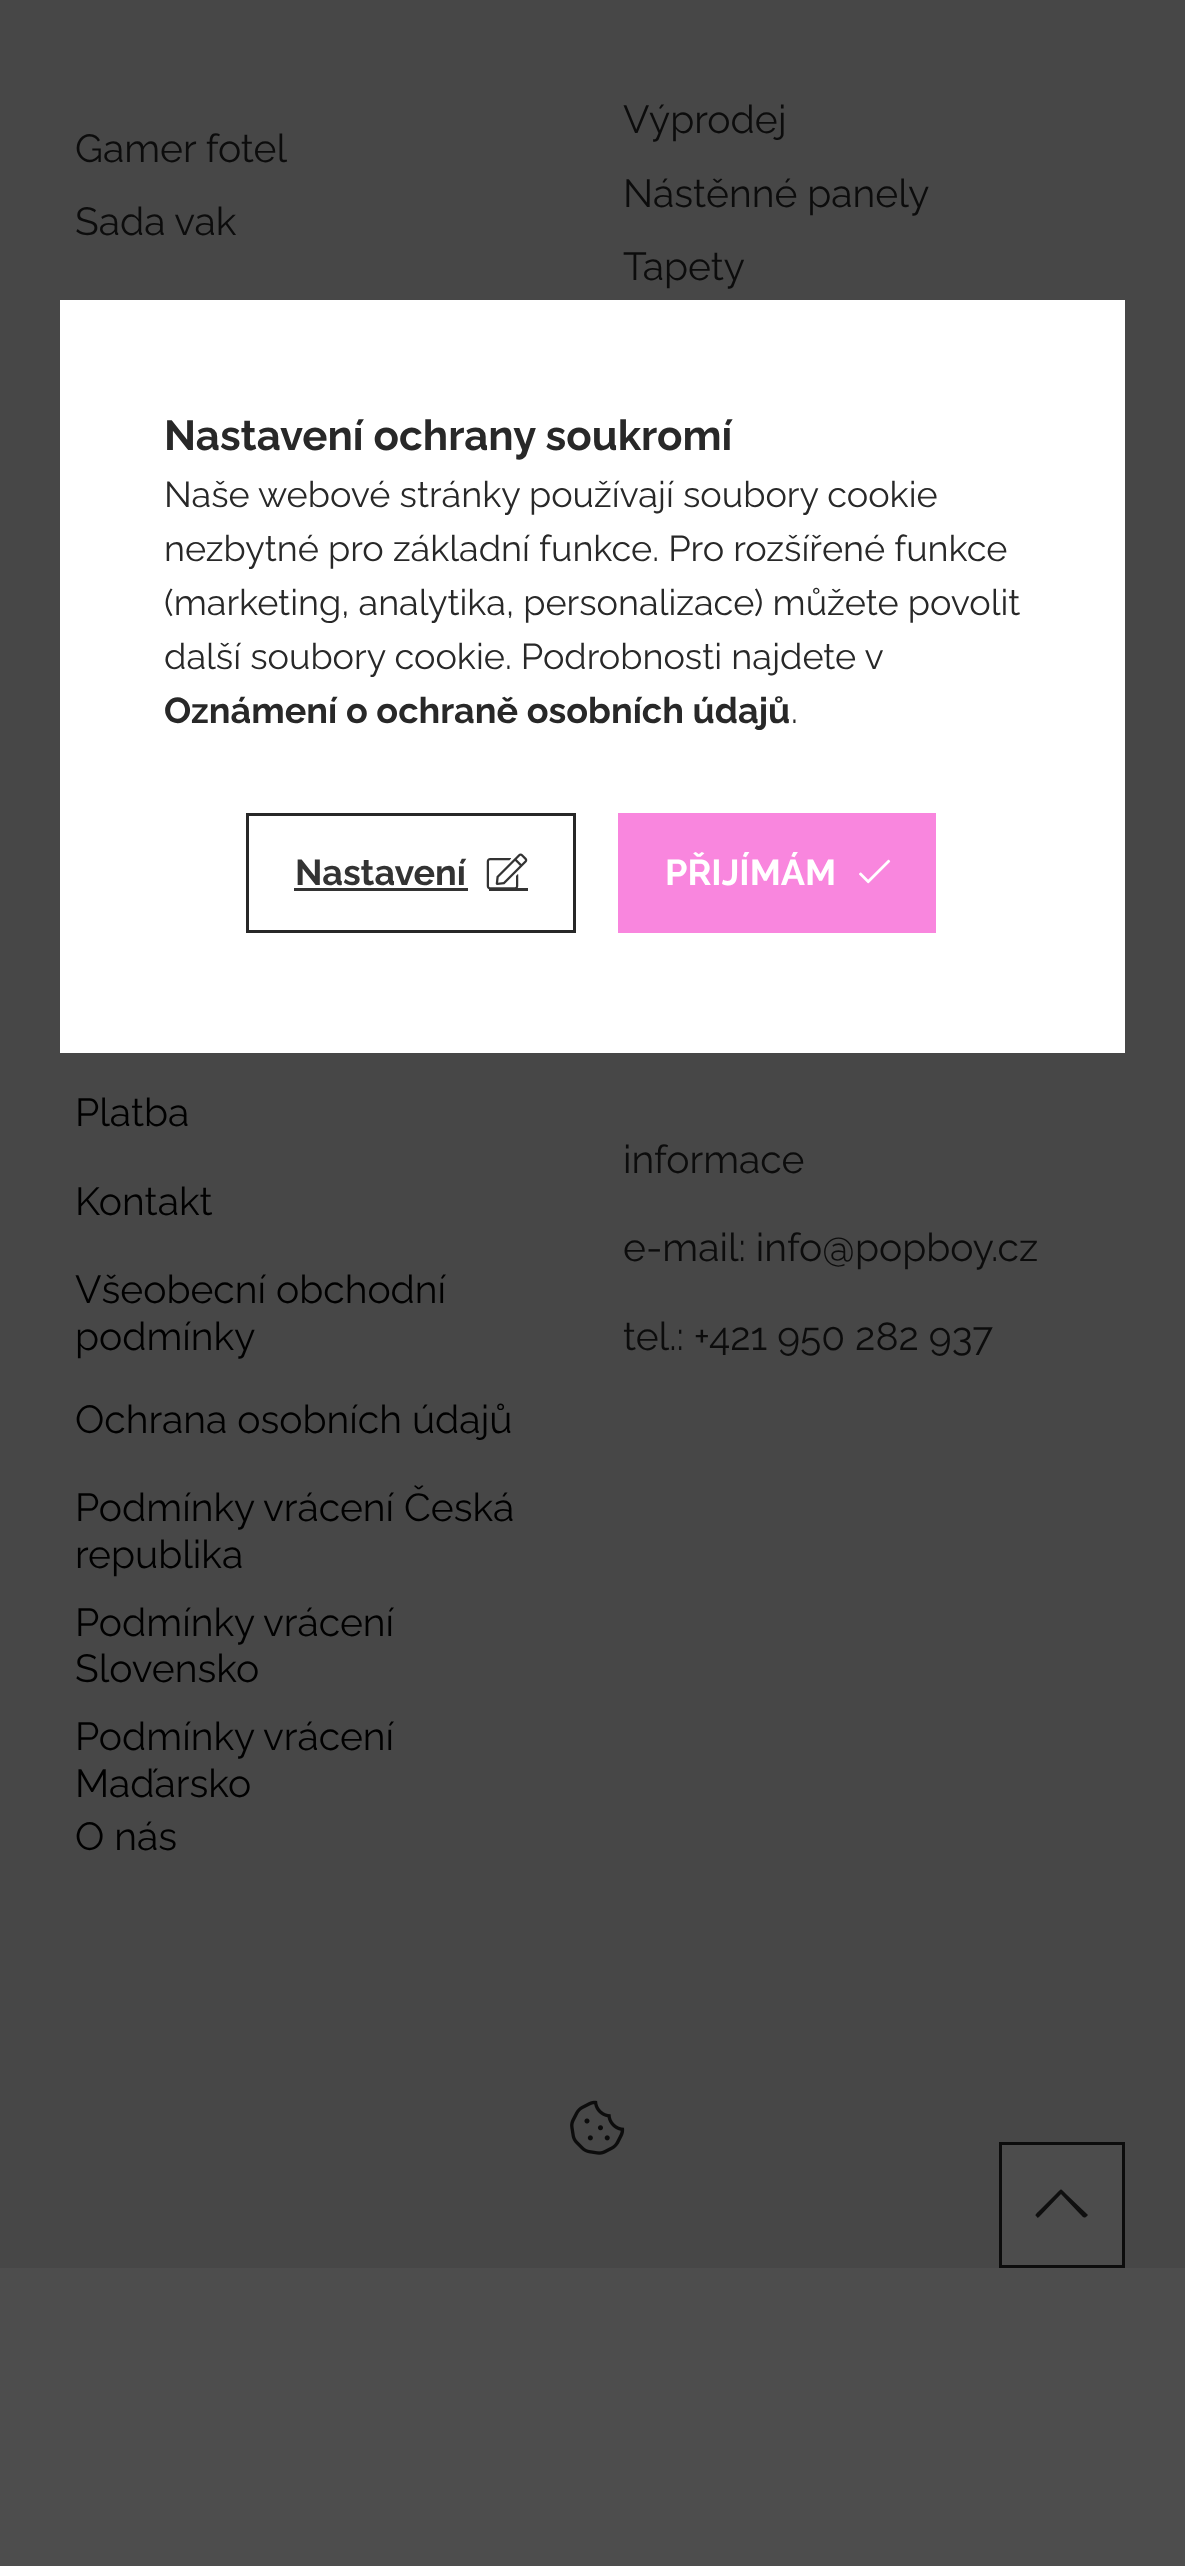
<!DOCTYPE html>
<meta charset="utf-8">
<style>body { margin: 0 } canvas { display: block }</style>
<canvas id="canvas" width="1185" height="2566"></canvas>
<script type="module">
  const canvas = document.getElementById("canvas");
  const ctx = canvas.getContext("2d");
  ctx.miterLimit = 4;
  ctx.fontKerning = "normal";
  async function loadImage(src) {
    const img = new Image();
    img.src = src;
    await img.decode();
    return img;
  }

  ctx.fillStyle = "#4d4d4d";
  ctx.fillRect(0, 0, 1185, 2566);
  ctx.fillStyle = "#474747";
  ctx.fillRect(0, 0, 1185, 2268);
  ctx.font = "39px Raleway";
  ctx.fillStyle = "#0c0c0c";
  ctx.fillText("Gamer fotel", 75, 162);
  ctx.fillText("Sada vak", 75, 235);
  ctx.fillText("Výprodej", 623, 133);
  ctx.fillText("Nástěnné panely", 623, 207);
  ctx.fillText("Tapety", 623, 280);
  ctx.fillStyle = "#000000";
  ctx.fillText("Platba", 75, 1126);
  ctx.fillText("Kontakt", 75, 1215);
  ctx.fillText("Všeobecní obchodní", 75, 1303);
  ctx.fillText("podmínky", 75, 1350);
  ctx.fillText("Ochrana osobních údajů", 75, 1433);
  ctx.fillText("Podmínky vrácení Česká", 75, 1521);
  ctx.fillText("republika", 75, 1568);
  ctx.fillText("Podmínky vrácení", 75, 1636);
  ctx.fillText("Slovensko", 75, 1682);
  ctx.fillText("Podmínky vrácení", 75, 1750);
  ctx.fillText("Maďarsko", 75, 1797);
  ctx.fillText("O nás", 75, 1850);
  ctx.fillStyle = "#0c0c0c";
  ctx.fillText("informace", 623, 1173);
  ctx.fillText("e-mail: info@popboy.cz", 623, 1261);
  ctx.fillText("tel.: +421 950 282 937", 623, 1350);
  ctx.drawImage(await loadImage("img1.png"), 570, 2100, 55, 55);
  ctx.fillStyle = "#ffffff";
  ctx.fillRect(60, 300, 1065, 753);
  ctx.font = "bold 42px Raleway";
  ctx.fillStyle = "#282828";
  ctx.fillText("Nastavení ochrany soukromí", 164, 450);
  ctx.font = "36px Raleway";
  ctx.fillText("Naše webové stránky používají soubory cookie", 164, 507);
  ctx.fillText("nezbytné pro základní funkce. Pro rozšířené funkce", 164, 561);
  ctx.fillText("(marketing, analytika, personalizace) můžete povolit", 164, 615);
  ctx.fillText("další soubory cookie. Podrobnosti najdete v", 164, 669);
  ctx.font = "bold 36px Raleway";
  ctx.fillText("Oznámení o ochraně osobních údajů", 164, 723);
  ctx.font = "36px Raleway";
  ctx.fillText(".", 791, 723);
  ctx.strokeStyle = "#282828";
  ctx.lineWidth = 3;
  ctx.strokeRect(247.5, 814.5, 327, 117);
  ctx.font = "bold 36px Raleway";
  ctx.fillStyle = "#333333";
  ctx.fillText("Nastavení", 295, 885);
  ctx.fillRect(294, 888, 174, 3);
  ctx.fillRect(489, 888, 39, 3);
  ctx.drawImage(await loadImage("img2.png"), 486, 853, 42, 37);
  ctx.fillStyle = "#f986de";
  ctx.fillRect(618, 813, 318, 120);
  ctx.fillStyle = "#ffffff";
  ctx.fillText("PŘIJÍMÁM", 665, 885);
  ctx.drawImage(await loadImage("img3.png"), 859, 859, 32, 25);
  ctx.fillStyle = "#4c4c4c";
  ctx.beginPath();
  ctx.rect(1000.5, 2143.5, 123, 123);
  ctx.fill();
  ctx.strokeStyle = "#0c0c0c";
  ctx.stroke();
  ctx.fillStyle = "#0f0f0f";
  ctx.beginPath();
  ctx.moveTo(1036, 2216);
  ctx.bezierCurveTo(1034, 2215, 1038, 2212, 1040, 2210);
  ctx.lineTo(1056, 2194);
  ctx.bezierCurveTo(1062, 2188, 1060, 2188, 1066, 2194);
  ctx.lineTo(1088, 2215);
  ctx.lineTo(1087, 2216);
  ctx.bezierCurveTo(1084, 2219, 1083, 2217, 1080, 2214);
  ctx.lineTo(1061, 2194);
  ctx.lineTo(1039, 2217);
  ctx.bezierCurveTo(1038, 2218, 1037, 2218, 1037, 2217);
  ctx.closePath();
  ctx.fill();
</script>
